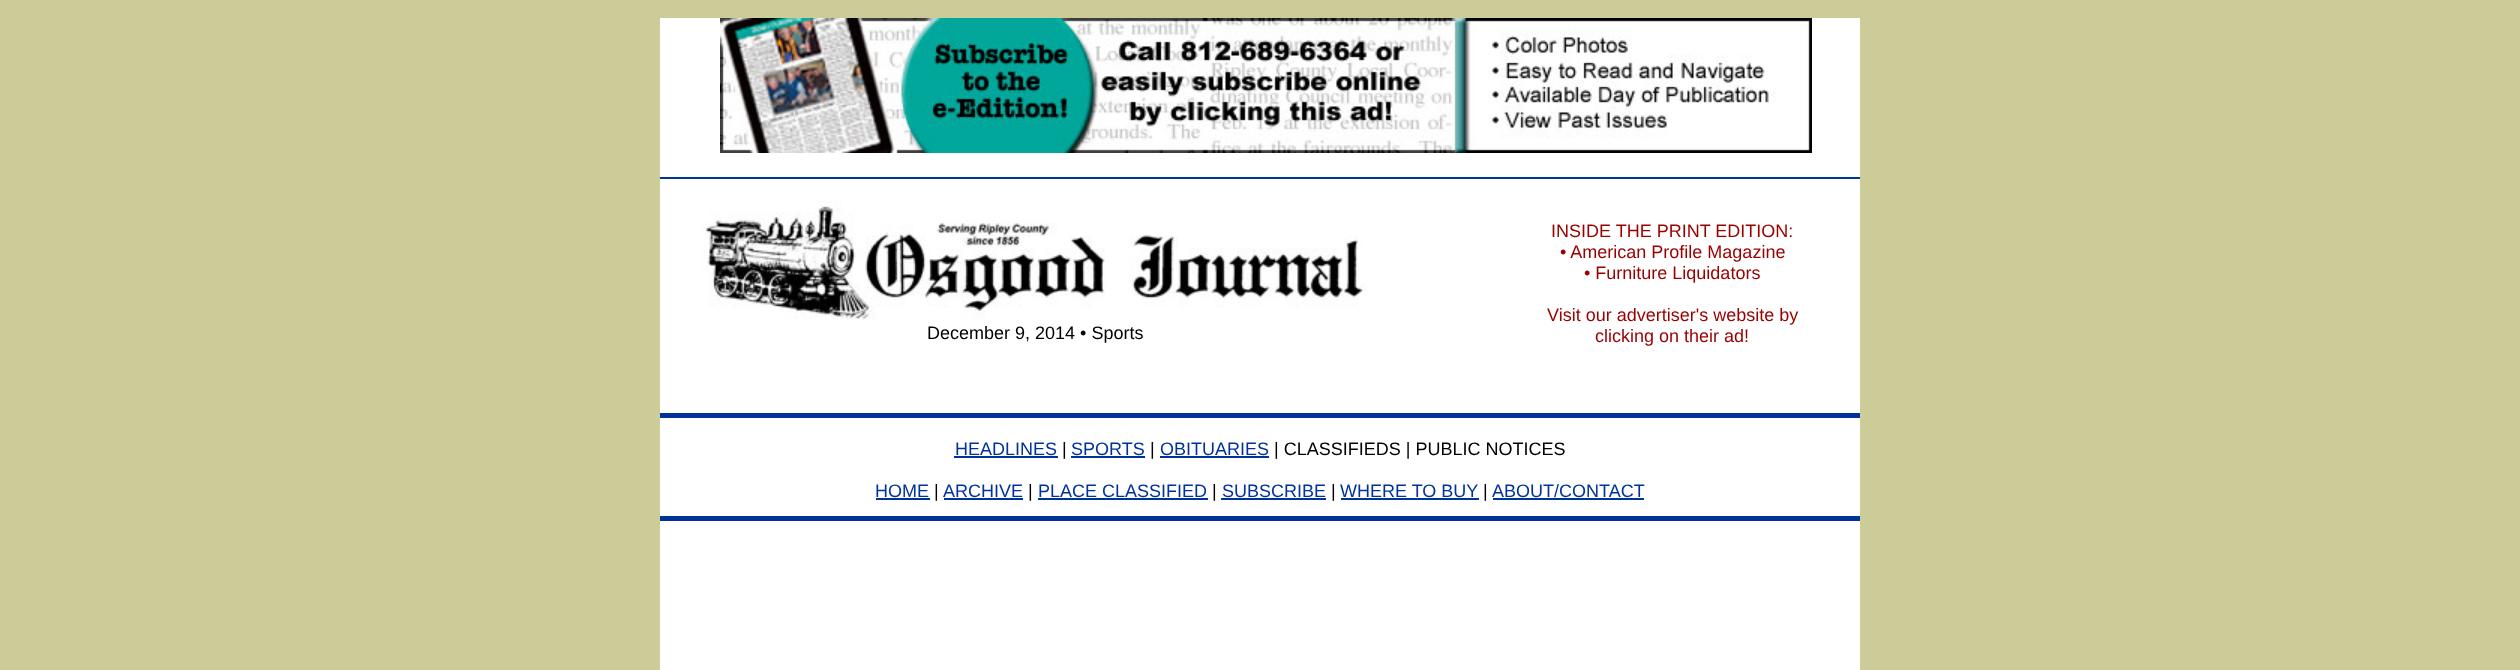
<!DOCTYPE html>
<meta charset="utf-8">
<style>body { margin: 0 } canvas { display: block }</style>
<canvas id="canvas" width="2520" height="670"></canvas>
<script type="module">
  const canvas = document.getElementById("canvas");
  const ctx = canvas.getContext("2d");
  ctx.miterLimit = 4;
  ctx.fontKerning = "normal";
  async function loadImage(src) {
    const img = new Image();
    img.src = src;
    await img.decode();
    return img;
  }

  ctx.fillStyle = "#cccc99";
  ctx.fillRect(0, 0, 2520, 670);
  ctx.fillStyle = "#ffffff";
  ctx.fillRect(660, 18, 1200, 652);
  ctx.drawImage(await loadImage("img1.png"), 720, 18, 1092, 135);
  ctx.fillStyle = "#003399";
  ctx.fillRect(660, 177, 1200, 2);
  ctx.drawImage(await loadImage("img2.png"), 701, 200, 667, 120);
  ctx.font = "18px Liberation Sans";
  ctx.fillStyle = "#000000";
  ctx.fillText("December 9, 2014 • Sports", 927, 339);
  ctx.fillStyle = "#990000";
  ctx.fillText("INSIDE THE PRINT EDITION:", 1551, 237);
  ctx.fillText("• American Profile Magazine", 1560, 258);
  ctx.fillText("• Furniture Liquidators", 1584, 279);
  ctx.fillText("Visit our advertiser's website by", 1547, 321);
  ctx.fillText("clicking on their ad!", 1595, 342);
  ctx.fillStyle = "#003399";
  ctx.fillRect(660, 413, 1200, 5);
  ctx.fillRect(660, 516, 1200, 5);
  ctx.fillText("HEADLINES", 955, 455);
  ctx.fillRect(954, 456, 104, 2);
  ctx.fillStyle = "#000000";
  ctx.fillText("|", 1062, 455);
  ctx.fillStyle = "#003399";
  ctx.fillText("SPORTS", 1071, 455);
  ctx.fillRect(1071, 456, 74, 2);
  ctx.fillStyle = "#000000";
  ctx.fillText("|", 1150, 455);
  ctx.fillStyle = "#003399";
  ctx.fillText("OBITUARIES", 1160, 455);
  ctx.fillRect(1160, 456, 109, 2);
  ctx.fillStyle = "#000000";
  ctx.fillText("| CLASSIFIEDS | PUBLIC NOTICES", 1274, 455);
  ctx.fillStyle = "#003399";
  ctx.fillText("HOME", 875, 497);
  ctx.fillRect(876, 498, 54, 2);
  ctx.fillStyle = "#000000";
  ctx.fillText("|", 934, 497);
  ctx.fillStyle = "#003399";
  ctx.fillText("ARCHIVE", 943, 497);
  ctx.fillRect(944, 498, 79, 2);
  ctx.fillStyle = "#000000";
  ctx.fillText("|", 1028, 497);
  ctx.fillStyle = "#003399";
  ctx.fillText("PLACE CLASSIFIED", 1038, 497);
  ctx.fillRect(1038, 498, 170, 2);
  ctx.fillStyle = "#000000";
  ctx.fillText("|", 1212, 497);
  ctx.fillStyle = "#003399";
  ctx.fillText("SUBSCRIBE", 1222, 497);
  ctx.fillRect(1221, 498, 105, 2);
  ctx.fillStyle = "#000000";
  ctx.fillText("|", 1331, 497);
  ctx.fillStyle = "#003399";
  ctx.fillText("WHERE TO BUY", 1340, 497);
  ctx.fillRect(1341, 498, 138, 2);
  ctx.fillStyle = "#000000";
  ctx.fillText("|", 1483, 497);
  ctx.fillStyle = "#003399";
  ctx.fillText("ABOUT/CONTACT", 1492, 497);
  ctx.fillRect(1493, 498, 151, 2);
</script>
